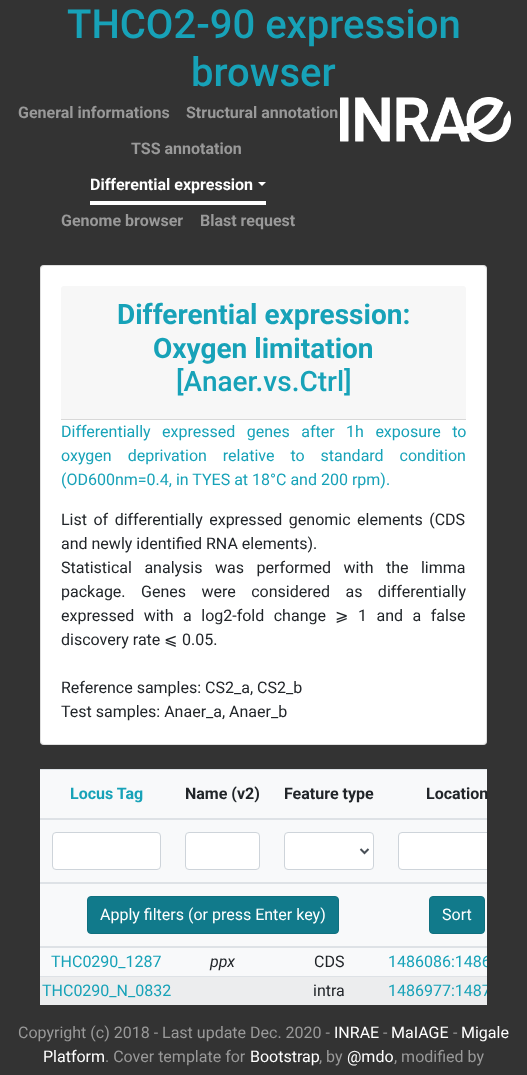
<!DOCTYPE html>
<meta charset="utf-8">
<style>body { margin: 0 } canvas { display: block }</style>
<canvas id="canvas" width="527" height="1075"></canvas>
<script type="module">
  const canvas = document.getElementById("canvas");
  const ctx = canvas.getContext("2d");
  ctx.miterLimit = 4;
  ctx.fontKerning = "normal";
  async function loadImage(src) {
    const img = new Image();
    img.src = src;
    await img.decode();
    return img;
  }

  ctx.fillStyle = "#333333";
  ctx.fillRect(0, 0, 527, 1075);
  ctx.font = "500 40px Roboto";
  ctx.fillStyle = "#17a2b8";
  ctx.fillText("THCO2-90 expression", 67, 38);
  ctx.fillText("browser", 191, 86);
  ctx.font = "bold 16px Roboto";
  ctx.fillStyle = "#999999";
  ctx.fillText("General informations", 18, 118);
  ctx.fillText("Structural annotation", 186, 118);
  ctx.fillText("TSS annotation", 131, 154);
  ctx.fillStyle = "#ffffff";
  ctx.fillRect(90, 201, 176, 4);
  ctx.fillText("Differential expression", 90, 190);
  ctx.beginPath();
  ctx.moveTo(258, 182);
  ctx.lineTo(266, 182);
  ctx.lineTo(262, 186);
  ctx.closePath();
  ctx.fill();
  ctx.fillStyle = "#999999";
  ctx.fillText("Genome browser", 61, 226);
  ctx.fillText("Blast request", 200, 226);
  ctx.drawImage(await loadImage("img1.png"), 340, 97, 171, 45);
  ctx.fillStyle = "#ffffff";
  ctx.beginPath();
  ctx.roundRect(40, 265, 447, 480, 4);
  ctx.fill();
  ctx.beginPath();
  ctx.roundRect(40.5, 265.5, 446, 479, 3.5);
  ctx.strokeStyle = "rgba(0, 0, 0, 0.12)";
  ctx.stroke();
  ctx.fillStyle = "#f7f7f7";
  ctx.beginPath();
  ctx.roundRect(61, 286, 405, 134, [3, 3, 0, 0]);
  ctx.fill();
  ctx.fillStyle = "#d8d8d8";
  ctx.fillRect(61, 419, 405, 1);
  ctx.font = "bold 28px Roboto";
  ctx.fillStyle = "#17a2b8";
  ctx.fillText("Differential expression:", 117, 324);
  ctx.fillText("Oxygen limitation", 153, 358);
  ctx.font = "500 28px Roboto";
  ctx.fillText("[Anaer.vs.Ctrl]", 176, 391);
  ctx.wordSpacing = "7.5px";
  ctx.font = "16px Roboto";
  ctx.fillText("Differentially expressed genes after 1h exposure to", 61, 437);
  ctx.wordSpacing = "12px";
  ctx.fillText("oxygen deprivation relative to standard condition", 61, 461);
  ctx.wordSpacing = "0px";
  ctx.fillText("(OD600nm=0.4, in TYES at 18°C and 200 rpm).", 61, 485);
  ctx.wordSpacing = "2.5px";
  ctx.fillStyle = "#212529";
  ctx.fillText("List of differentially expressed genomic elements (CDS", 61, 525);
  ctx.wordSpacing = "0px";
  ctx.fillText("and newly identified RNA elements).", 61, 549);
  ctx.wordSpacing = "8.5px";
  ctx.fillText("Statistical analysis was performed with the limma", 61, 573);
  ctx.wordSpacing = "11.5px";
  ctx.fillText("package. Genes were considered as differentially", 61, 597);
  ctx.wordSpacing = "5.5px";
  ctx.fillText("expressed with a log2-fold change", 61, 621);
  ctx.wordSpacing = "0px";
  ctx.font = "16px DejaVu Sans";
  ctx.fillText("⩾", 335, 621);
  ctx.wordSpacing = "5.5px";
  ctx.font = "16px Roboto";
  ctx.fillText("1 and a false", 358, 621);
  ctx.wordSpacing = "0px";
  ctx.fillText("discovery rate", 61, 645);
  ctx.font = "16px DejaVu Sans";
  ctx.fillText("⩽", 164, 645);
  ctx.font = "16px Roboto";
  ctx.fillText("0.05.", 182, 645);
  ctx.fillText("Reference samples: CS2_a, CS2_b", 61, 693);
  ctx.fillText("Test samples: Anaer_a, Anaer_b", 61, 717);
  ctx.fillStyle = "#f8f9fa";
  ctx.fillRect(40, 770, 447, 206);
  ctx.font = "bold 16px Roboto";
  ctx.fillStyle = "#17a2b8";
  ctx.fillText("Locus Tag", 70, 799);
  ctx.fillStyle = "#212529";
  ctx.fillText("Name (v2)", 185, 799);
  ctx.fillText("Feature type", 284, 799);
  ctx.fillStyle = "#dee2e6";
  ctx.fillRect(40, 769, 447, 1);
  ctx.fillRect(40, 818, 447, 2);
  ctx.fillStyle = "#212529";
  ctx.fillText("Location", 426, 799);
  ctx.fillStyle = "#dee2e6";
  ctx.fillRect(40, 882, 447, 2);
  ctx.fillStyle = "#ffffff";
  ctx.beginPath();
  ctx.roundRect(399, 833, 88, 36, [3, 0, 0, 3]);
  ctx.fill();
  ctx.save();
  ctx.beginPath();
  ctx.rect(40, 769, 447, 252);
  ctx.clip();
  ctx.beginPath();
  ctx.roundRect(398.5, 832.5, 117, 37, 3.5);
  ctx.strokeStyle = "#ced4da";
  ctx.stroke();
  ctx.restore();
  ctx.beginPath();
  ctx.roundRect(52.5, 832.5, 108, 37, 3.5);
  ctx.fill();
  ctx.strokeStyle = "#ced4da";
  ctx.stroke();
  ctx.beginPath();
  ctx.roundRect(185.5, 832.5, 74, 37, 3.5);
  ctx.fill();
  ctx.stroke();
  ctx.beginPath();
  ctx.roundRect(284.5, 832.5, 89, 37, 3.5);
  ctx.fill();
  ctx.stroke();
  ctx.beginPath();
  ctx.moveTo(360.5, 849);
  ctx.lineTo(364.5, 853);
  ctx.lineTo(368.5, 849);
  ctx.strokeStyle = "#495057";
  ctx.lineWidth = 2;
  ctx.stroke();
  ctx.fillStyle = "#117a8b";
  ctx.beginPath();
  ctx.roundRect(87.5, 896.5, 251, 37, 3.5);
  ctx.fill();
  ctx.strokeStyle = "#10707f";
  ctx.lineWidth = 1;
  ctx.stroke();
  ctx.font = "16px Roboto";
  ctx.fillStyle = "#ffffff";
  ctx.fillText("Apply filters (or press Enter key)", 100, 920);
  ctx.fillStyle = "#dee2e6";
  ctx.fillRect(40, 946, 447, 2);
  ctx.fillStyle = "#117a8b";
  ctx.beginPath();
  ctx.roundRect(429.5, 896.5, 55, 37, 3.5);
  ctx.fill();
  ctx.stroke();
  ctx.fillStyle = "#ffffff";
  ctx.fillText("Sort", 442, 920);
  ctx.fillStyle = "#17a2b8";
  ctx.fillText("THC0290_1287", 51, 967);
  ctx.font = "italic 16px Roboto";
  ctx.fillStyle = "#212529";
  ctx.fillText("ppx", 210, 967);
  ctx.font = "16px Roboto";
  ctx.fillText("CDS", 314, 967);
  ctx.save();
  ctx.beginPath();
  ctx.rect(40, 769, 447, 252);
  ctx.clip();
  ctx.fillStyle = "#17a2b8";
  ctx.fillText("1486086:1486", 388, 967);
  ctx.restore();
  ctx.fillStyle = "#ecedee";
  ctx.fillRect(40, 977, 447, 28);
  ctx.fillStyle = "#17a2b8";
  ctx.fillText("THC0290_N_0832", 42, 996);
  ctx.fillStyle = "#212529";
  ctx.fillText("intra", 313, 996);
  ctx.fillStyle = "#dee2e6";
  ctx.fillRect(40, 976, 447, 1);
  ctx.save();
  ctx.beginPath();
  ctx.rect(40, 769, 447, 252);
  ctx.clip();
  ctx.fillStyle = "#17a2b8";
  ctx.fillText("1486977:1487", 388, 996);
  ctx.restore();
  ctx.fillStyle = "#999999";
  ctx.fillText("Copyright (c) 2018 - Last update Dec. 2020 -", 18, 1038);
  ctx.fillStyle = "#ffffff";
  ctx.fillText("INRAE", 334, 1038);
  ctx.fillStyle = "#999999";
  ctx.fillText("-", 383, 1038);
  ctx.fillStyle = "#ffffff";
  ctx.fillText("MaIAGE", 391, 1038);
  ctx.fillStyle = "#999999";
  ctx.fillText("-", 453, 1038);
  ctx.fillStyle = "#ffffff";
  ctx.fillText("Migale", 461, 1038);
  ctx.fillText("Platform", 43, 1062);
  ctx.fillStyle = "#999999";
  ctx.fillText(". Cover template for", 105, 1062);
  ctx.fillStyle = "#ffffff";
  ctx.fillText("Bootstrap", 250, 1062);
  ctx.fillStyle = "#999999";
  ctx.fillText(", by", 319, 1062);
  ctx.fillStyle = "#ffffff";
  ctx.fillText("@mdo", 347, 1062);
  ctx.fillStyle = "#999999";
  ctx.fillText(", modified by", 394, 1062);
</script>
